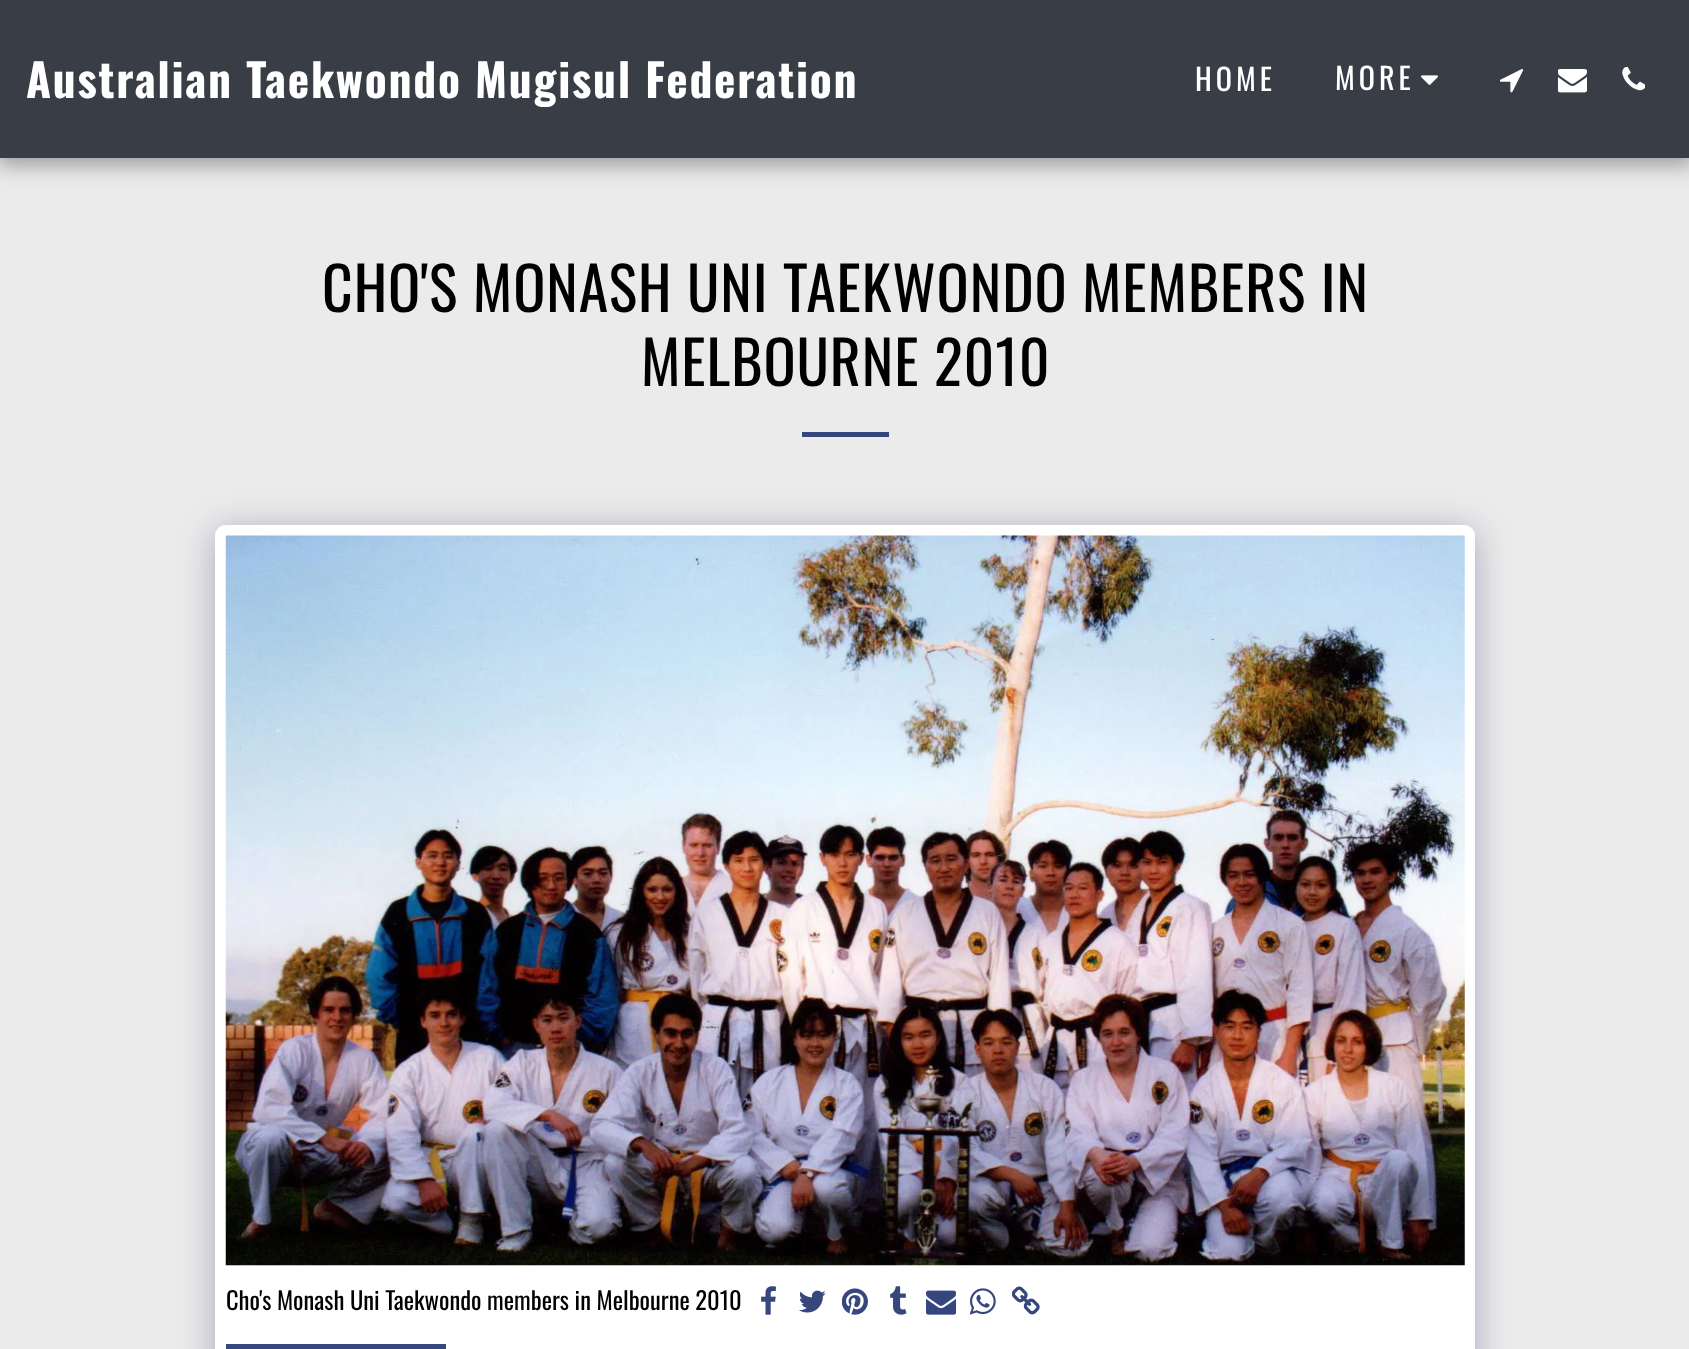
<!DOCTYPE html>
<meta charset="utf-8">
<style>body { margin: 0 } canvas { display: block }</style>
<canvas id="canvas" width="1689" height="1349"></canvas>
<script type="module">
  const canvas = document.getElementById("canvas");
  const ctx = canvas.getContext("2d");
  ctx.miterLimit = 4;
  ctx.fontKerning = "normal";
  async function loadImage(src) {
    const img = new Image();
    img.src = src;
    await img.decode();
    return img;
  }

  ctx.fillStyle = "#ebebeb";
  ctx.fillRect(0, 0, 1689, 1349);
  ctx.fillStyle = "rgba(0, 0, 0, 0.35)";
  ctx.filter = "blur(10.5px)";
  ctx.beginPath();
  ctx.rect(-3, 0, 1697, 165);
  ctx.fill();
  ctx.filter = "none";
  ctx.fillStyle = "#393e46";
  ctx.fillRect(0, 0, 1689, 158);
  ctx.letterSpacing = "1.75px";
  ctx.font = "bold 45.5px Oswald";
  ctx.fillStyle = "#ffffff";
  ctx.fillText("Australian Taekwondo Mugisul Federation", 26, 98);
  ctx.letterSpacing = "4px";
  ctx.font = "30px Oswald";
  ctx.fillText("HOME", 1195, 91);
  ctx.fillText("MORE", 1335, 90);
  ctx.drawImage(await loadImage("img1.png"), 1421, 75, 17, 10);
  ctx.drawImage(await loadImage("img2.png"), 1500, 69, 23, 24);
  ctx.drawImage(await loadImage("img3.png"), 1558, 69, 29, 24);
  ctx.drawImage(await loadImage("img4.png"), 1622, 66, 23, 25);
  ctx.letterSpacing = "0.9px";
  ctx.font = "59.75px Oswald";
  ctx.fillStyle = "#000000";
  ctx.fillText("CHO'S MONASH UNI TAEKWONDO", 322, 312);
  ctx.fillText("MEMBERS IN", 1082, 312);
  ctx.fillText("MELBOURNE 2010", 641, 386);
  ctx.fillStyle = "#35477d";
  ctx.fillRect(802, 432, 87, 5);
  ctx.fillStyle = "rgba(77, 63, 122, 0.4)";
  ctx.filter = "blur(17.5px)";
  ctx.beginPath();
  ctx.roundRect(215, 530, 1260, 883, 11);
  ctx.fill();
  ctx.filter = "none";
  ctx.fillStyle = "#ffffff";
  ctx.beginPath();
  ctx.roundRect(215, 525, 1260, 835, 11);
  ctx.fill();
  ctx.drawImage(await loadImage("img5.png"), 225, 535, 1240, 731);
  ctx.letterSpacing = "0px";
  ctx.font = "24.5px Oswald";
  ctx.fillStyle = "#000000";
  ctx.fillText("Cho's Monash Uni Taekwondo members in Melbourne 2010", 226, 1310);
  ctx.drawImage(await loadImage("img6.png"), 761, 1286, 15, 29);
  ctx.drawImage(await loadImage("img7.png"), 799, 1290, 27, 23);
  ctx.drawImage(await loadImage("img8.png"), 842, 1288, 26, 27);
  ctx.drawImage(await loadImage("img9.png"), 890, 1286, 17, 29);
  ctx.drawImage(await loadImage("img10.png"), 926, 1290, 30, 25);
  ctx.drawImage(await loadImage("img11.png"), 970, 1288, 26, 27);
  ctx.drawImage(await loadImage("img12.png"), 1012, 1286, 28, 29);
  ctx.fillStyle = "#35477d";
  ctx.fillRect(226, 1344, 220, 5);
</script>
